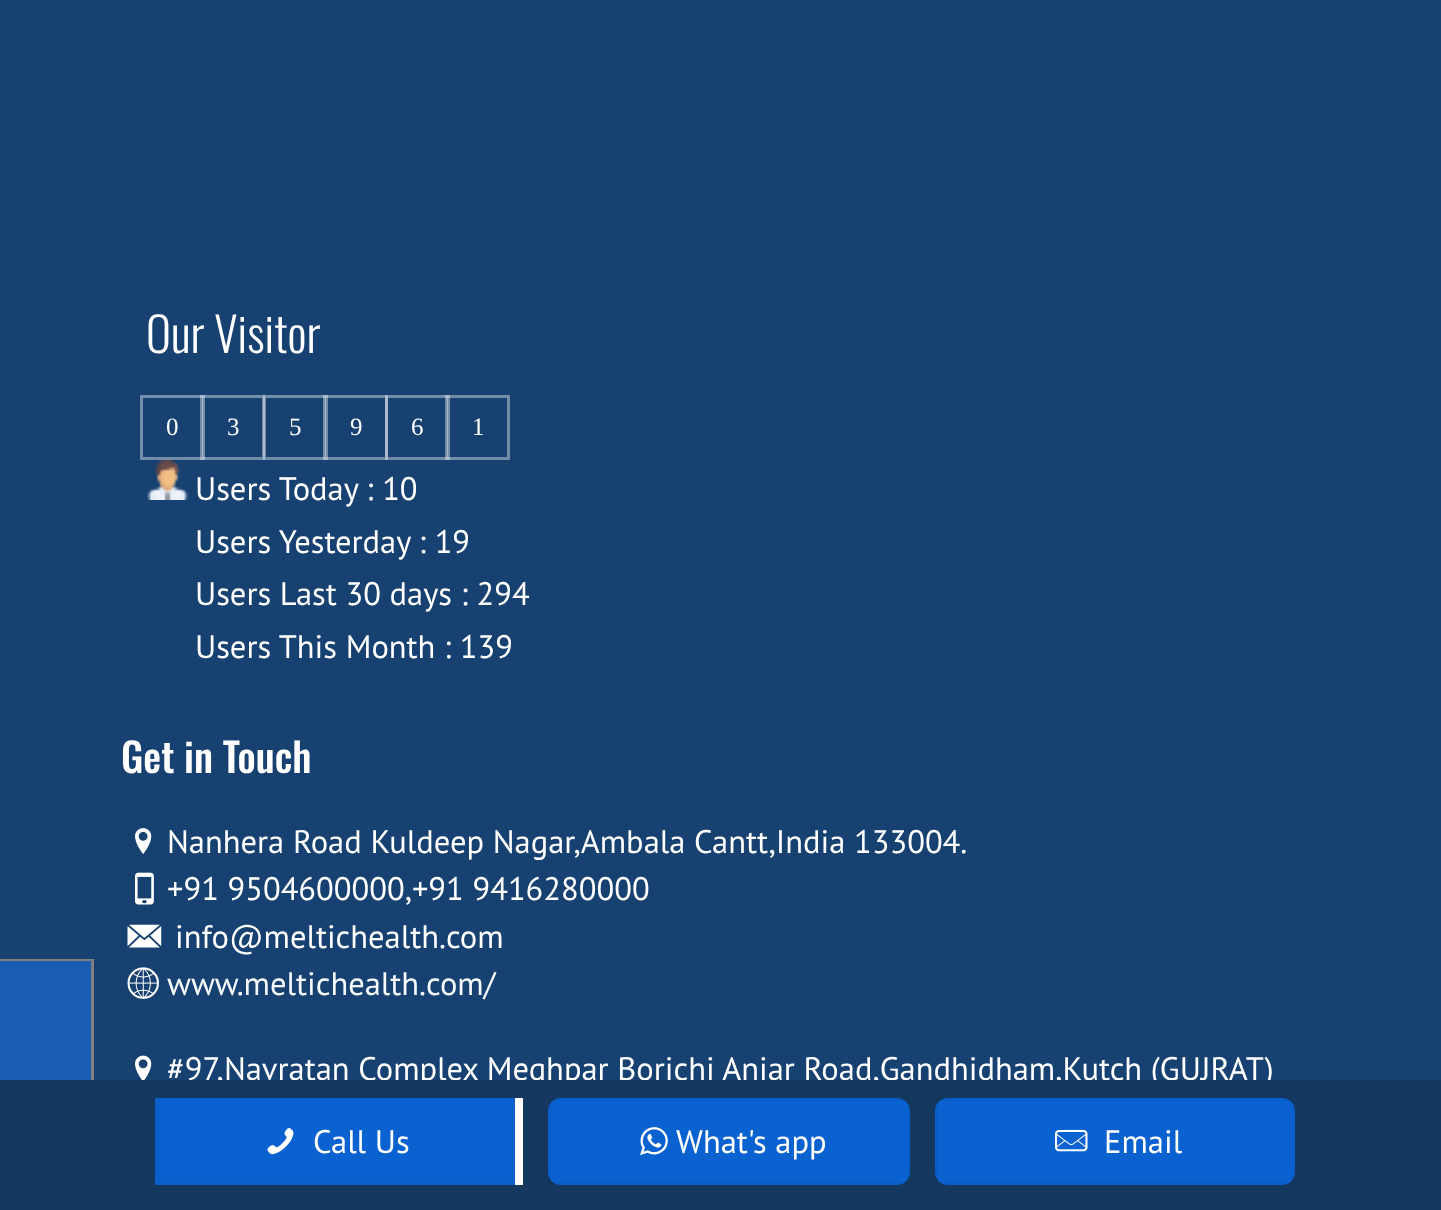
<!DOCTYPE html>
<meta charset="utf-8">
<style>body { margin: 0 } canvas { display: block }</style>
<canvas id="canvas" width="1441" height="1210"></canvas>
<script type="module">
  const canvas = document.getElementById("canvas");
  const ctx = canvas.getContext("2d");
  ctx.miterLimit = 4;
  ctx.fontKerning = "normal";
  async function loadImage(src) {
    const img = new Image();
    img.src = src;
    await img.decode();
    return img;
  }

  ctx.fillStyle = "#174171";
  ctx.fillRect(0, 0, 1441, 1210);
  ctx.fillStyle = "#1b5db5";
  ctx.fillRect(0, 961, 91, 119);
  ctx.fillStyle = "#7f7f7f";
  ctx.fillRect(0, 959, 94, 2);
  ctx.fillRect(91, 959, 3, 121);
  ctx.font = "300 47.5px Oswald";
  ctx.fillStyle = "#ffffff";
  ctx.fillText("Our Visitor", 146, 353);
  ctx.strokeStyle = "#748daa";
  ctx.lineWidth = 3;
  ctx.strokeRect(141.5, 396.5, 62, 62);
  ctx.font = "25px Liberation Serif";
  ctx.fillText("0", 166, 435);
  ctx.strokeStyle = "rgba(255, 255, 255, 0.4)";
  ctx.strokeRect(201.5, 396.5, 62, 62);
  ctx.fillText("3", 227, 435);
  ctx.strokeRect(264.5, 396.5, 62, 62);
  ctx.fillText("5", 289, 435);
  ctx.strokeRect(324.5, 396.5, 62, 62);
  ctx.fillText("9", 350, 435);
  ctx.strokeRect(386.5, 396.5, 62, 62);
  ctx.fillText("6", 411, 435);
  ctx.strokeRect(446.5, 396.5, 62, 62);
  ctx.fillText("1", 472, 435);
  ctx.drawImage(await loadImage("img1.png"), 147, 460, 41, 40);
  ctx.font = "32.5px PT Sans";
  ctx.fillText("Users Today : 10", 195, 500);
  ctx.fillText("Users Yesterday : 19", 195, 553);
  ctx.fillText("Users Last 30 days : 294", 195, 605);
  ctx.fillText("Users This Month : 139", 195, 658);
  ctx.font = "500 40px Oswald";
  ctx.fillText("Get in Touch", 121, 773);
  ctx.drawImage(await loadImage("img2.png"), 135, 828, 17, 26);
  ctx.font = "32.5px PT Sans";
  ctx.fillText("Nanhera Road Kuldeep Nagar,Ambala Cantt,India 133004.", 167, 853);
  ctx.drawImage(await loadImage("img3.png"), 135, 872, 19, 33);
  ctx.fillText("+91 9504600000,+91 9416280000", 167, 900);
  ctx.drawImage(await loadImage("img4.png"), 127, 924, 35, 24);
  ctx.fillText("info@meltichealth.com", 175, 948);
  ctx.drawImage(await loadImage("img5.png"), 127, 967, 32, 32);
  ctx.fillStyle = "#f7fafc";
  ctx.fillText("www.meltichealth.com/", 167, 995);
  ctx.drawImage(await loadImage("img6.png"), 135, 1055, 17, 25);
  ctx.fillStyle = "#ffffff";
  ctx.fillText("#97,Navratan Complex Meghpar Borichi Anjar Road,Gandhidham,Kutch (GUJRAT)", 167, 1080);
  ctx.fillStyle = "#143860";
  ctx.fillRect(0, 1080, 1441, 130);
  ctx.fillStyle = "#0a62d0";
  ctx.beginPath();
  ctx.rect(156.5, 1099.5, 357, 84);
  ctx.fill();
  ctx.strokeStyle = "#0a5fca";
  ctx.stroke();
  ctx.fillStyle = "#ffffff";
  ctx.fillRect(515, 1098, 8, 87);
  ctx.drawImage(await loadImage("img7.png"), 267, 1128, 27, 27);
  ctx.fillText("Call Us", 313, 1153);
  ctx.fillStyle = "#0a62d0";
  ctx.beginPath();
  ctx.roundRect(548, 1098, 362, 87, 13);
  ctx.fill();
  ctx.strokeStyle = "rgba(0, 0, 0, 0.03)";
  ctx.strokeRect(549.5, 1099.5, 359, 84);
  ctx.drawImage(await loadImage("img8.png"), 640, 1127, 28, 29);
  ctx.fillStyle = "#ffffff";
  ctx.fillText("What's app", 676, 1153);
  ctx.fillStyle = "#0a62d0";
  ctx.beginPath();
  ctx.roundRect(935, 1098, 360, 87, 13);
  ctx.fill();
  ctx.strokeRect(936.5, 1099.5, 357, 84);
  ctx.drawImage(await loadImage("img9.png"), 1055, 1129, 33, 23);
  ctx.fillStyle = "#ffffff";
  ctx.fillText("Email", 1104, 1153);
</script>
